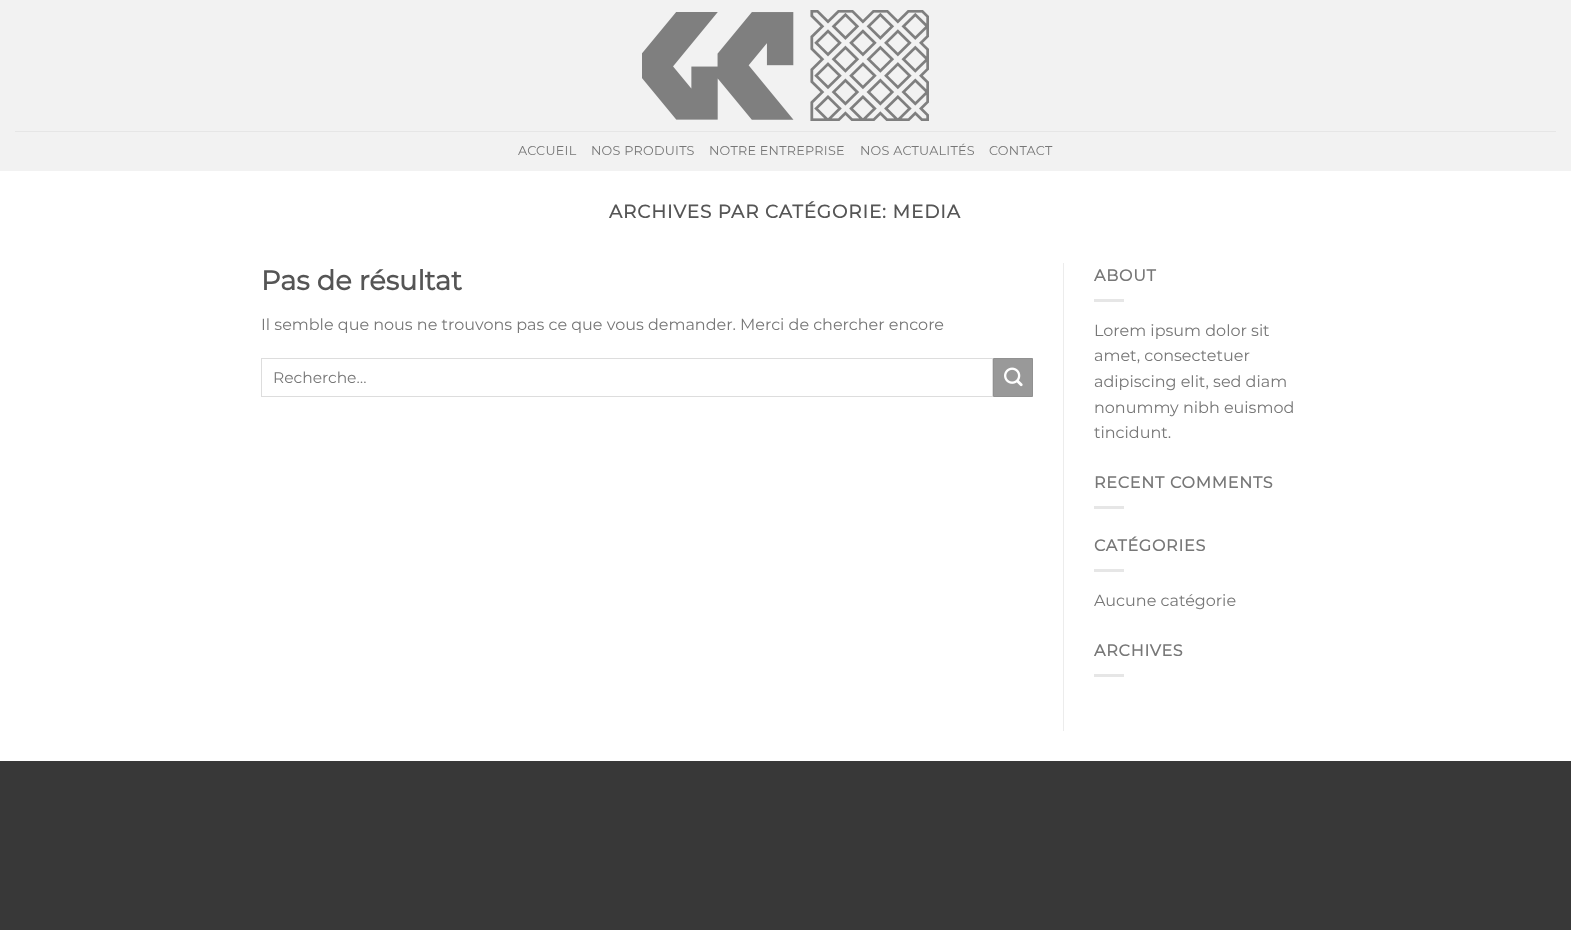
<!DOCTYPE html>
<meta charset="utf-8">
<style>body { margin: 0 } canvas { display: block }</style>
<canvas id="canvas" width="1571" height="930"></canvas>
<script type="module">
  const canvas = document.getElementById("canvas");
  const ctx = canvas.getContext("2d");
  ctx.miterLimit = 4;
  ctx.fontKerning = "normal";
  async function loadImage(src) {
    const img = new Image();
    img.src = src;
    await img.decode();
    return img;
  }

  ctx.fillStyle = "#383838";
  ctx.fillRect(0, 0, 1571, 930);
  ctx.fillStyle = "#ffffff";
  ctx.fillRect(0, 171, 1571, 590);
  ctx.fillStyle = "#f2f2f2";
  ctx.fillRect(0, 0, 1571, 171);
  ctx.drawImage(await loadImage("img1.png"), 642, 10, 287, 111);
  ctx.fillStyle = "#e6e6e6";
  ctx.fillRect(15, 131, 1541, 1);
  ctx.letterSpacing = "0.25px";
  ctx.font = "100 12.75px Montserrat";
  ctx.fillStyle = "#777777";
  ctx.fillText("ACCUEIL", 518, 155);
  ctx.fillText("NOS PRODUITS", 591, 155);
  ctx.fillText("NOTRE ENTREPRISE", 709, 155);
  ctx.fillText("NOS ACTUALITÉS", 860, 155);
  ctx.fillText("CONTACT", 989, 155);
  ctx.letterSpacing = "0.9px";
  ctx.font = "bold 18.4px Montserrat";
  ctx.fillStyle = "#555555";
  ctx.fillText("ARCHIVES PAR CATÉGORIE: MEDIA", 609, 218);
  ctx.letterSpacing = "0px";
  ctx.font = "bold 27.25px Montserrat";
  ctx.fillText("Pas de résultat", 261, 290);
  ctx.font = "100 16px Montserrat";
  ctx.fillStyle = "#777777";
  ctx.fillText("Il semble que nous ne trouvons pas ce que vous demander. Merci de chercher encore", 261, 330);
  ctx.strokeStyle = "#dddddd";
  ctx.strokeRect(261.5, 358.5, 731, 38);
  ctx.font = "100 15.5px Montserrat";
  ctx.fillText("Recherche…", 273, 383);
  ctx.fillStyle = "#999999";
  ctx.beginPath();
  ctx.rect(993.5, 358.5, 39, 38);
  ctx.fill();
  ctx.strokeStyle = "#919191";
  ctx.stroke();
  ctx.drawImage(await loadImage("img2.png"), 1004, 367, 19, 20);
  ctx.fillStyle = "#ececec";
  ctx.fillRect(1063, 263, 1, 468);
  ctx.letterSpacing = "0.75px";
  ctx.font = "bold 16px Montserrat";
  ctx.fillStyle = "#777777";
  ctx.fillText("ABOUT", 1094, 281);
  ctx.fillStyle = "#e6e6e6";
  ctx.fillRect(1094, 299, 30, 3);
  ctx.letterSpacing = "0px";
  ctx.font = "100 16px Montserrat";
  ctx.fillStyle = "#777777";
  ctx.fillText("Lorem ipsum dolor sit", 1094, 336);
  ctx.fillText("amet, consectetuer", 1094, 361);
  ctx.fillText("adipiscing elit, sed diam", 1094, 387);
  ctx.fillText("nonummy nibh euismod", 1094, 413);
  ctx.fillText("tincidunt.", 1094, 438);
  ctx.letterSpacing = "0.75px";
  ctx.font = "bold 16px Montserrat";
  ctx.fillText("RECENT COMMENTS", 1094, 488);
  ctx.fillStyle = "#e6e6e6";
  ctx.fillRect(1094, 506, 30, 3);
  ctx.fillStyle = "#777777";
  ctx.fillText("CATÉGORIES", 1094, 551);
  ctx.fillStyle = "#e6e6e6";
  ctx.fillRect(1094, 569, 30, 3);
  ctx.letterSpacing = "0px";
  ctx.font = "100 16px Montserrat";
  ctx.fillStyle = "#777777";
  ctx.fillText("Aucune catégorie", 1094, 606);
  ctx.letterSpacing = "0.75px";
  ctx.font = "bold 16px Montserrat";
  ctx.fillText("ARCHIVES", 1094, 656);
  ctx.fillStyle = "#e6e6e6";
  ctx.fillRect(1094, 674, 30, 3);
</script>
